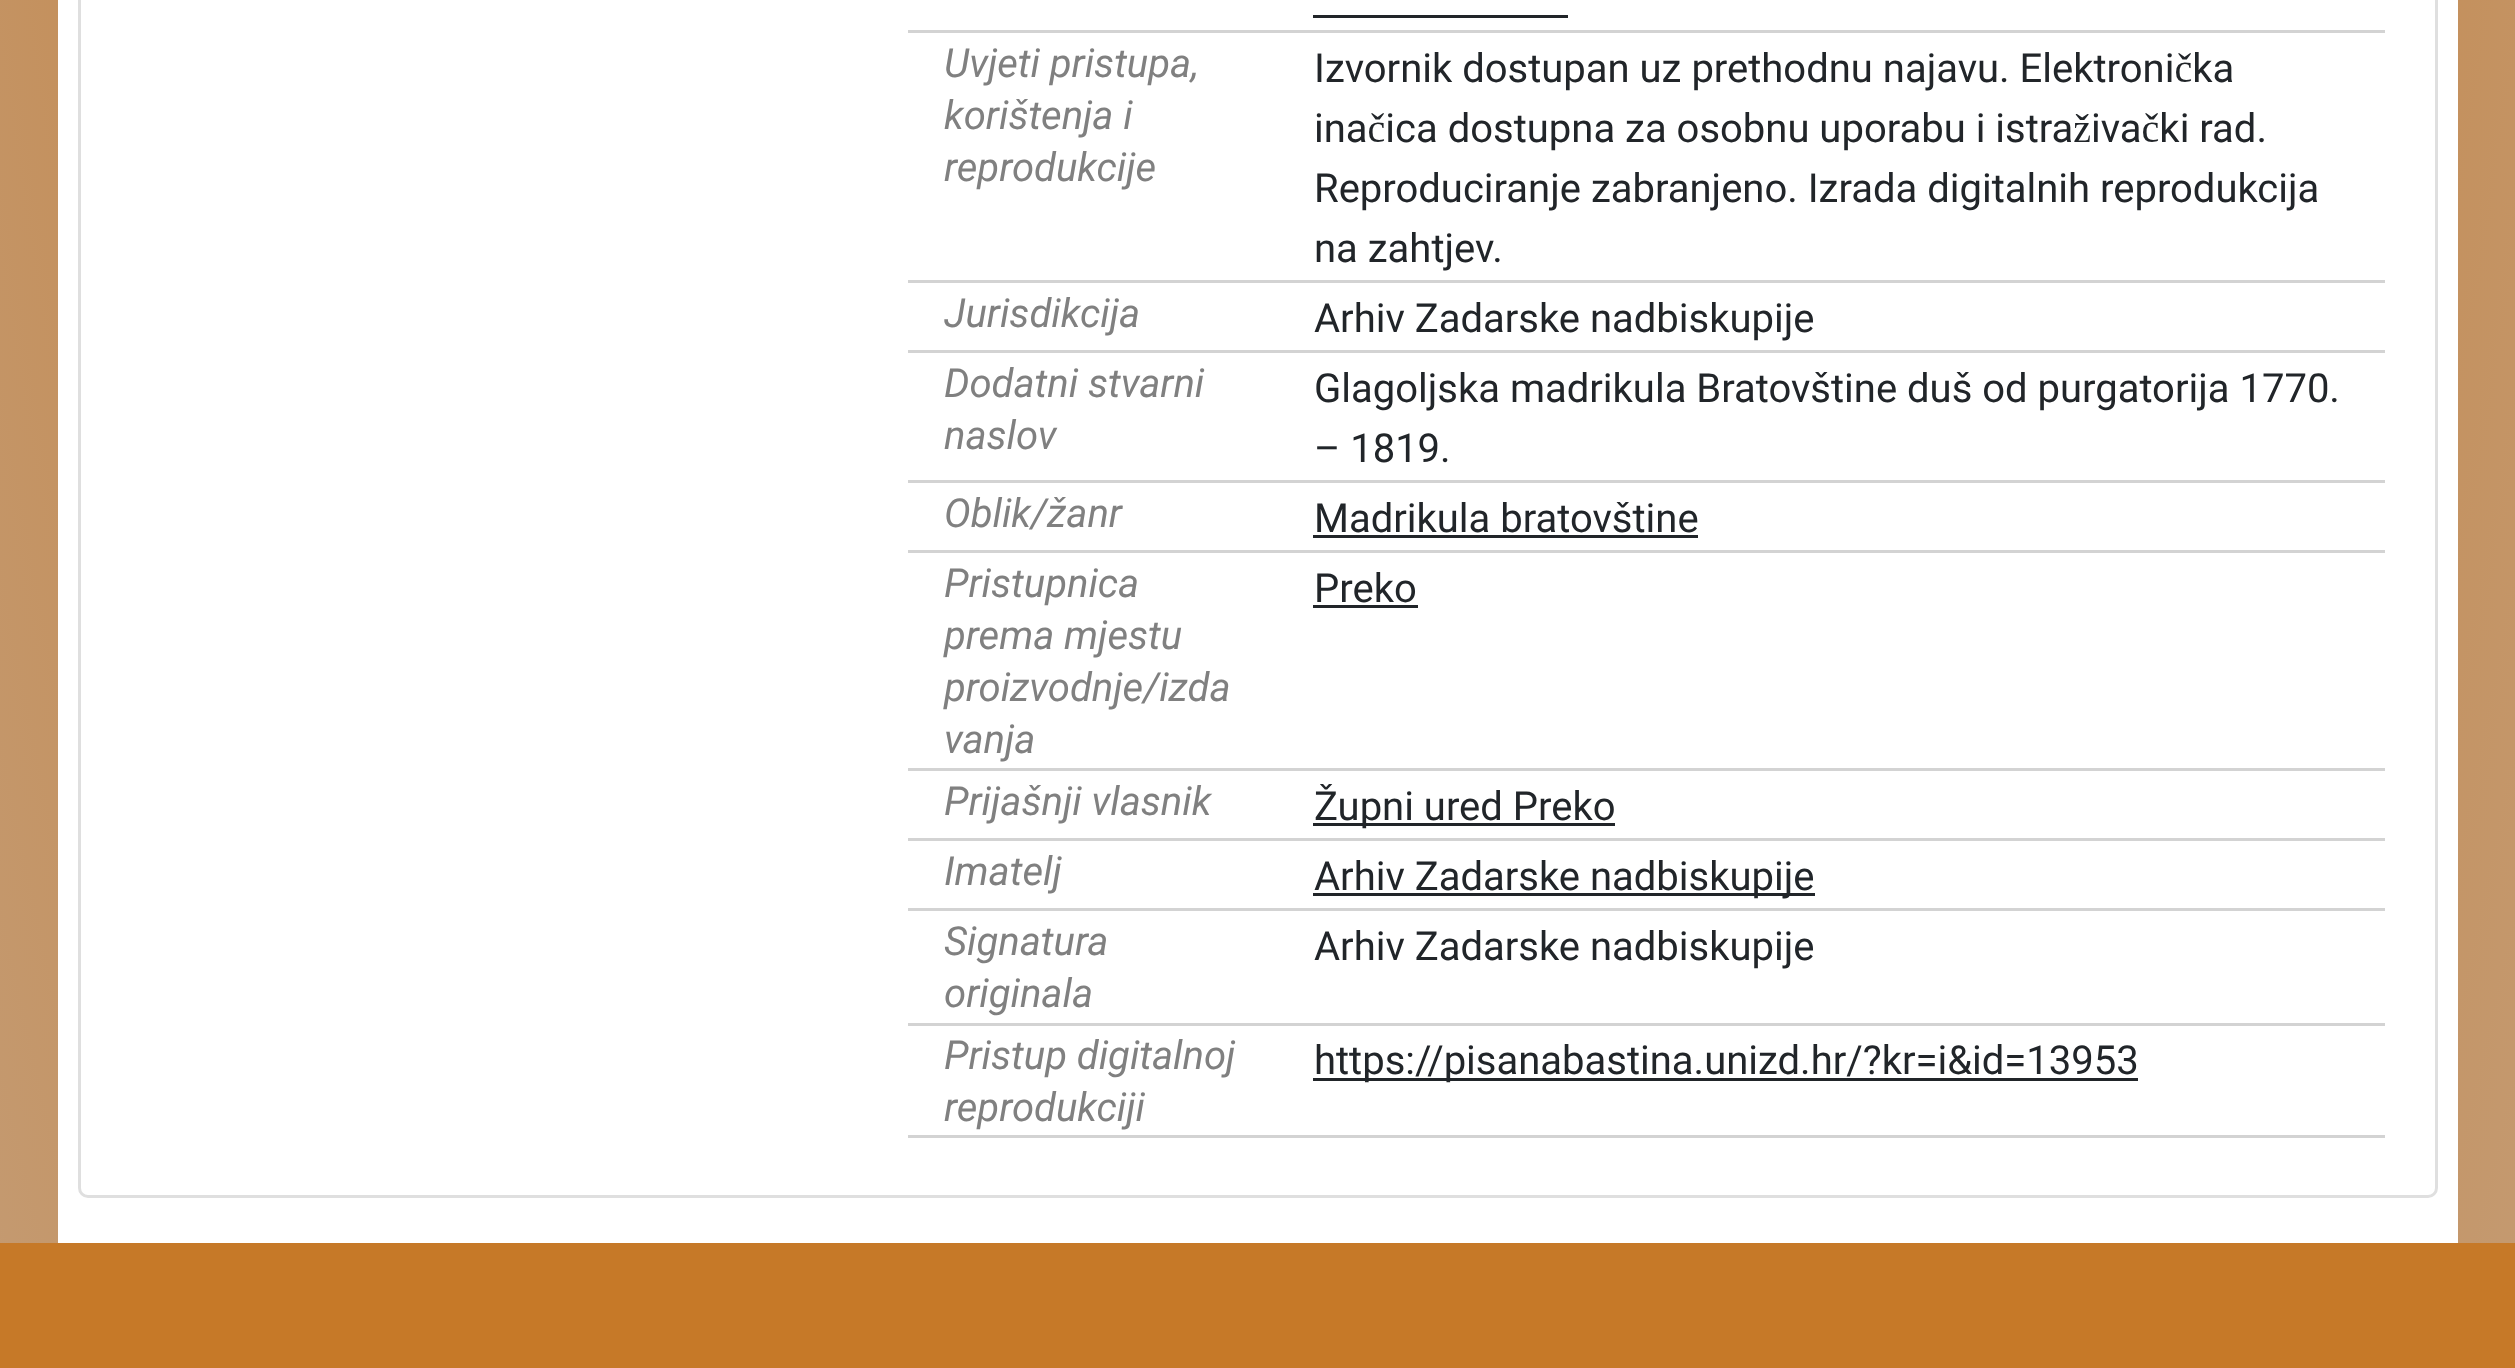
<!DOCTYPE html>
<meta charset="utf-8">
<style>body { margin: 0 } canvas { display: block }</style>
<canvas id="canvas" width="2515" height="1368"></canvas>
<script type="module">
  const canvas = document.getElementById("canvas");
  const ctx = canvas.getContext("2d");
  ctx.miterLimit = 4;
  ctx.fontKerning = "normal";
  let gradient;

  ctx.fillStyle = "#ffffff";
  ctx.fillRect(0, 0, 2515, 1368);
  gradient = ctx.createRadialGradient(1258, -498.89, 0, 1258, -498.89, 1778);
  gradient.addColorStop(0.01, "#c67928");
  gradient.addColorStop(0.5, "#c48648");
  gradient.addColorStop(0.52, "#c48444");
  gradient.addColorStop(1, "#c4a17f");
  ctx.fillStyle = gradient;
  ctx.beginPath();
  ctx.rect(0, 0, 2515, 1243);
  ctx.save();
  ctx.clip();
  ctx.scale(1, 5353 / 1778);
  ctx.fillRect(0, 0, 2515, 455);
  ctx.restore();
  ctx.fillStyle = "#ffffff";
  ctx.fillRect(58, 0, 2400, 1243);
  ctx.beginPath();
  ctx.roundRect(79.5, -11.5, 2357, 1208, 8.5);
  ctx.strokeStyle = "#dfdfdf";
  ctx.lineWidth = 3;
  ctx.stroke();
  ctx.fillStyle = "#d3d3d3";
  ctx.fillRect(908, 30, 1477, 3);
  ctx.fillStyle = "#212529";
  ctx.fillRect(1313, 15, 255, 3);
  ctx.fillStyle = "#d3d3d3";
  ctx.fillRect(908, 280, 1477, 3);
  ctx.font = "italic 40px Roboto";
  ctx.fillStyle = "#808080";
  ctx.fillText("Uvjeti pristupa,", 944, 77);
  ctx.fillText("korištenja i", 944, 129);
  ctx.fillText("reprodukcije", 944, 181);
  ctx.font = "40px Roboto";
  ctx.fillStyle = "#212529";
  ctx.fillText("Izvornik dostupan uz prethodnu najavu. Elektronička", 1314, 82);
  ctx.fillText("inačica dostupna za osobnu uporabu i istraživački rad.", 1314, 142);
  ctx.fillText("Reproduciranje zabranjeno. Izrada digitalnih reprodukcija", 1314, 202);
  ctx.fillText("na zahtjev.", 1314, 262);
  ctx.fillStyle = "#d3d3d3";
  ctx.fillRect(908, 350, 1477, 3);
  ctx.font = "italic 40px Roboto";
  ctx.fillStyle = "#808080";
  ctx.fillText("Jurisdikcija", 944, 327);
  ctx.font = "40px Roboto";
  ctx.fillStyle = "#212529";
  ctx.fillText("Arhiv Zadarske nadbiskupije", 1314, 332);
  ctx.fillStyle = "#d3d3d3";
  ctx.fillRect(908, 480, 1477, 3);
  ctx.font = "italic 40px Roboto";
  ctx.fillStyle = "#808080";
  ctx.fillText("Dodatni stvarni", 944, 397);
  ctx.fillText("naslov", 944, 449);
  ctx.font = "40px Roboto";
  ctx.fillStyle = "#212529";
  ctx.fillText("Glagoljska madrikula Bratovštine duš od purgatorija 1770.", 1314, 402);
  ctx.fillText("– 1819.", 1314, 462);
  ctx.fillStyle = "#d3d3d3";
  ctx.fillRect(908, 550, 1477, 3);
  ctx.font = "italic 40px Roboto";
  ctx.fillStyle = "#808080";
  ctx.fillText("Oblik/žanr", 944, 527);
  ctx.font = "40px Roboto";
  ctx.fillStyle = "#212529";
  ctx.fillText("Madrikula bratovštine", 1314, 532);
  ctx.fillRect(1313, 535, 385, 3);
  ctx.fillStyle = "#d3d3d3";
  ctx.fillRect(908, 768, 1477, 3);
  ctx.font = "italic 40px Roboto";
  ctx.fillStyle = "#808080";
  ctx.fillText("Pristupnica", 944, 597);
  ctx.fillText("prema mjestu", 944, 649);
  ctx.fillText("proizvodnje/izda", 944, 701);
  ctx.fillText("vanja", 944, 753);
  ctx.font = "40px Roboto";
  ctx.fillStyle = "#212529";
  ctx.fillText("Preko", 1314, 602);
  ctx.fillRect(1313, 605, 105, 3);
  ctx.fillStyle = "#d3d3d3";
  ctx.fillRect(908, 838, 1477, 3);
  ctx.font = "italic 40px Roboto";
  ctx.fillStyle = "#808080";
  ctx.fillText("Prijašnji vlasnik", 944, 815);
  ctx.fillStyle = "#212529";
  ctx.fillRect(1313, 823, 302, 3);
  ctx.font = "40px Roboto";
  ctx.fillText("Župni ured Preko", 1314, 820);
  ctx.fillStyle = "#d3d3d3";
  ctx.fillRect(908, 908, 1477, 3);
  ctx.font = "italic 40px Roboto";
  ctx.fillStyle = "#808080";
  ctx.fillText("Imatelj", 944, 885);
  ctx.fillStyle = "#212529";
  ctx.fillRect(1313, 893, 502, 3);
  ctx.font = "40px Roboto";
  ctx.fillText("Arhiv Zadarske nadbiskupije", 1314, 890);
  ctx.fillStyle = "#d3d3d3";
  ctx.fillRect(908, 1023, 1477, 3);
  ctx.font = "italic 40px Roboto";
  ctx.fillStyle = "#808080";
  ctx.fillText("Signatura", 944, 955);
  ctx.fillText("originala", 944, 1007);
  ctx.font = "40px Roboto";
  ctx.fillStyle = "#212529";
  ctx.fillText("Arhiv Zadarske nadbiskupije", 1314, 960);
  ctx.fillStyle = "#d3d3d3";
  ctx.fillRect(908, 1135, 1477, 3);
  ctx.font = "italic 40px Roboto";
  ctx.fillStyle = "#808080";
  ctx.fillText("Pristup digitalnoj", 944, 1069);
  ctx.fillText("reprodukciji", 944, 1121);
  ctx.fillStyle = "#212529";
  ctx.fillRect(1313, 1078, 825, 3);
  ctx.font = "40px Roboto";
  ctx.fillText("https://pisanabastina.unizd.hr/?kr=i&id=13953", 1314, 1074);
  ctx.fillStyle = "#c67928";
  ctx.fillRect(0, 1243, 2515, 125);
</script>
